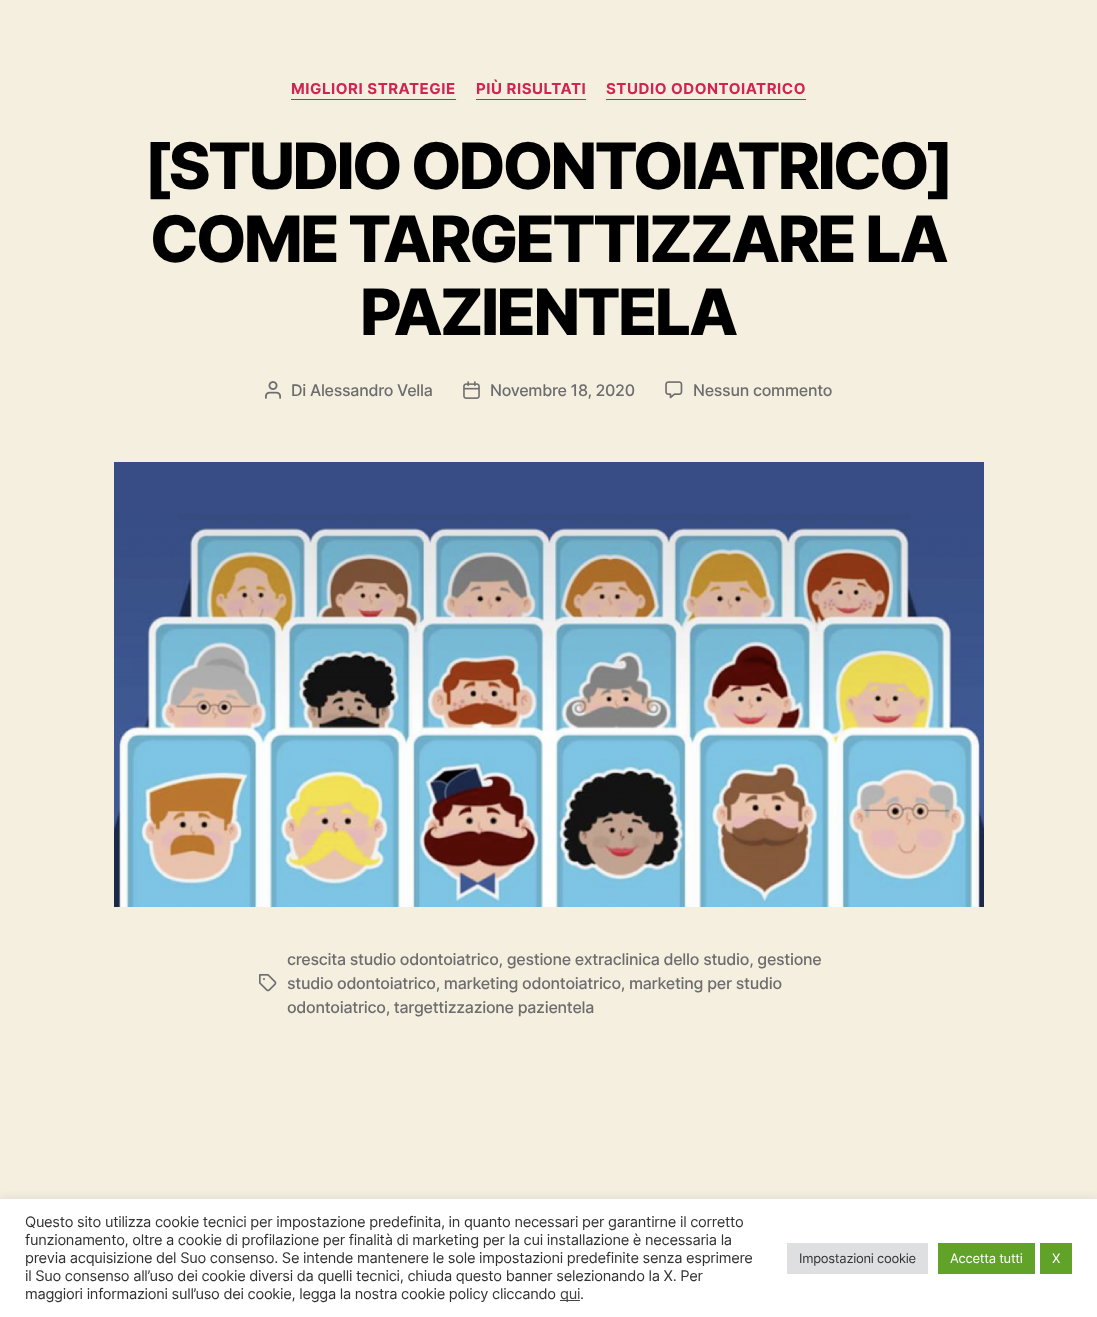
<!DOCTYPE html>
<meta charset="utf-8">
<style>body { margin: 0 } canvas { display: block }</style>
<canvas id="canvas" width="1097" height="1317"></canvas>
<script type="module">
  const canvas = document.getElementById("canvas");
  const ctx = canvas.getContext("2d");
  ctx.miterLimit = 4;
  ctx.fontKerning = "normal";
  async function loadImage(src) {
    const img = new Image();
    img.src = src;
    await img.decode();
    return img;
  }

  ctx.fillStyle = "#f5efe0";
  ctx.fillRect(0, 0, 1097, 1317);
  ctx.fillStyle = "#cd2653";
  ctx.fillRect(291, 99, 165, 1);
  ctx.letterSpacing = "0.55px";
  ctx.font = "bold 15px Inter";
  ctx.fillText("MIGLIORI STRATEGIE", 291, 94);
  ctx.fillRect(476, 99, 110, 1);
  ctx.fillText("PIÙ RISULTATI", 476, 94);
  ctx.fillRect(606, 99, 200, 1);
  ctx.fillText("STUDIO ODONTOIATRICO", 606, 94);
  ctx.letterSpacing = "-2.7px";
  ctx.font = "800 64px Inter";
  ctx.fillStyle = "#000000";
  ctx.fillText("[STUDIO ODONTOIATRICO]", 144, 189);
  ctx.fillText("COME TARGETTIZZARE LA", 150, 262);
  ctx.fillText("PAZIENTELA", 360, 335);
  ctx.drawImage(await loadImage("img1.png"), 265, 381, 16, 18);
  ctx.letterSpacing = "-0.27px";
  ctx.font = "500 16px Inter";
  ctx.fillStyle = "#6d6d6d";
  ctx.fillText("Di Alessandro Vella", 291, 396);
  ctx.drawImage(await loadImage("img2.png"), 463, 381, 17, 18);
  ctx.fillText("Novembre 18, 2020", 490, 396);
  ctx.drawImage(await loadImage("img3.png"), 665, 381, 18, 18);
  ctx.fillText("Nessun commento", 693, 396);
  ctx.drawImage(await loadImage("img4.png"), 114, 462, 870, 445);
  ctx.drawImage(await loadImage("img5.png"), 259, 974, 18, 18);
  ctx.fillText("crescita studio odontoiatrico, gestione extraclinica dello studio, gestione", 287, 965);
  ctx.fillText("studio odontoiatrico, marketing odontoiatrico, marketing per studio", 287, 989);
  ctx.fillText("odontoiatrico, targettizzazione pazientela", 287, 1013);
  ctx.fillStyle = "rgba(172, 171, 171, 0.3)";
  ctx.filter = "blur(5px)";
  ctx.beginPath();
  ctx.rect(0, 1198, 1097, 118);
  ctx.fill();
  ctx.filter = "none";
  ctx.fillStyle = "#ffffff";
  ctx.fillRect(0, 1199, 1097, 118);
  ctx.font = "14.65px Inter";
  ctx.fillStyle = "#333333";
  ctx.fillText("Questo sito utilizza cookie tecnici per impostazione predefinita, in quanto necessari per garantirne il corretto", 25, 1227);
  ctx.fillText("funzionamento, oltre a cookie di profilazione per finalità di marketing per la cui installazione è necessaria la", 25, 1245);
  ctx.fillText("previa acquisizione del Suo consenso. Se intende mantenere le sole impostazioni predefinite senza esprimere", 25, 1263);
  ctx.fillText("il Suo consenso all’uso dei cookie diversi da quelli tecnici, chiuda questo banner selezionando la X. Per", 25, 1281);
  ctx.fillText("maggiori informazioni sull’uso dei cookie, legga la nostra cookie policy cliccando", 25, 1299);
  ctx.fillStyle = "#444444";
  ctx.fillRect(560, 1300, 20, 1);
  ctx.fillText("qui", 560, 1299);
  ctx.fillStyle = "#333333";
  ctx.fillText(".", 580, 1299);
  ctx.fillStyle = "#dedfe0";
  ctx.fillRect(787, 1243, 141, 31);
  ctx.font = "13px Inter";
  ctx.fillStyle = "#333333";
  ctx.fillText("Impostazioni cookie", 799, 1263);
  ctx.fillStyle = "#61a229";
  ctx.fillRect(938, 1243, 97, 31);
  ctx.fillStyle = "#ffffff";
  ctx.fillText("Accetta tutti", 950, 1263);
  ctx.fillStyle = "#61a229";
  ctx.fillRect(1040, 1243, 32, 31);
  ctx.fillStyle = "#ffffff";
  ctx.fillText("X", 1052, 1263);
</script>
